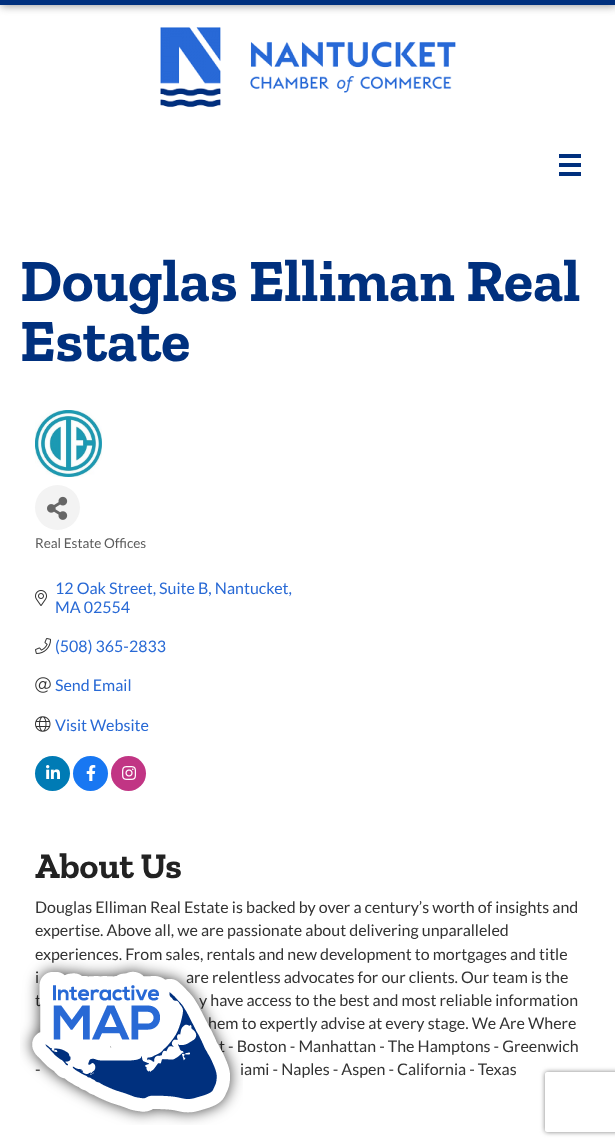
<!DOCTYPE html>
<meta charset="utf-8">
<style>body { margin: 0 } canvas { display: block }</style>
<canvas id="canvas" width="615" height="1146"></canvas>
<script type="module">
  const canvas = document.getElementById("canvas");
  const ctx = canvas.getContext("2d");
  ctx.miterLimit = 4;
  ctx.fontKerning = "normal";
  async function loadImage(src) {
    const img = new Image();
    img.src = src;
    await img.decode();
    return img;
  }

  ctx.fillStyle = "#ffffff";
  ctx.fillRect(0, 0, 615, 1146);
  ctx.fillStyle = "#999999";
  ctx.filter = "blur(4.5px)";
  ctx.beginPath();
  ctx.rect(1, -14, 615, 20);
  ctx.fill();
  ctx.filter = "none";
  ctx.fillStyle = "#00307e";
  ctx.fillRect(0, 0, 615, 5);
  ctx.drawImage(await loadImage("img1.png"), 160, 27, 296, 81);
  ctx.fillRect(559, 154, 22, 4);
  ctx.fillRect(559, 163, 22, 4);
  ctx.fillRect(559, 172, 22, 4);
  ctx.font = "bold 60px Zilla Slab";
  ctx.fillText("Douglas Elliman Real", 20, 301);
  ctx.fillText("Estate", 20, 361);
  ctx.drawImage(await loadImage("img2.png"), 35, 410, 67, 67);
  ctx.fillStyle = "#f3f3f3";
  ctx.beginPath();
  ctx.arc(57.5, 507.5, 22.5, 0, Math.PI * 2);
  ctx.fill();
  ctx.drawImage(await loadImage("img3.png"), 47, 496, 21, 24);
  ctx.font = "13.5px Lato";
  ctx.fillStyle = "#5c5c5c";
  ctx.fillText("Real Estate Offices", 35, 548);
  ctx.drawImage(await loadImage("img4.png"), 35, 590, 12, 16);
  ctx.font = "16px Lato";
  ctx.fillStyle = "#2869d5";
  ctx.fillText("12 Oak Street, Suite B, Nantucket,", 55, 594);
  ctx.fillText("MA 02554", 55, 613);
  ctx.drawImage(await loadImage("img5.png"), 35, 638, 16, 16);
  ctx.fillText("(508) 365-2833", 55, 652);
  ctx.drawImage(await loadImage("img6.png"), 35, 677, 16, 16);
  ctx.fillText("Send Email", 55, 691);
  ctx.drawImage(await loadImage("img7.png"), 35, 716, 16, 16);
  ctx.fillText("Visit Website", 55, 731);
  ctx.fillStyle = "#007bb5";
  ctx.beginPath();
  ctx.arc(52.5, 773.5, 17.5, 0, Math.PI * 2);
  ctx.fill();
  ctx.drawImage(await loadImage("img8.png"), 46, 765, 14, 14);
  ctx.fillStyle = "#1877f2";
  ctx.beginPath();
  ctx.arc(90.5, 773.5, 17.5, 0, Math.PI * 2);
  ctx.fill();
  ctx.drawImage(await loadImage("img9.png"), 86, 765, 10, 16);
  ctx.fillStyle = "#c13584";
  ctx.beginPath();
  ctx.arc(128.5, 773.5, 17.5, 0, Math.PI * 2);
  ctx.fill();
  ctx.drawImage(await loadImage("img10.png"), 122, 766, 15, 14);
  ctx.font = "bold 36px Zilla Slab";
  ctx.fillStyle = "#222222";
  ctx.fillText("About Us", 35, 878);
  ctx.font = "16px Lato";
  ctx.fillStyle = "#333333";
  ctx.fillText("Douglas Elliman Real Estate is backed by over a century’s worth of insights and", 35, 913);
  ctx.fillText("expertise. Above all, we are passionate about delivering unparalleled", 35, 936);
  ctx.fillText("experiences. From sales, rentals and new development to mortgages and title", 35, 960);
  ctx.fillText("i", 35, 983);
  ctx.fillText("are relentless advocates for our clients. Our team is the", 186, 983);
  ctx.fillText("t", 35, 1006);
  ctx.fillText("y have access to the best and most reliable information", 199, 1006);
  ctx.fillText("hem to expertly advise at every stage. We Are Where", 208, 1029);
  ctx.fillText("t - Boston - Manhattan - The Hamptons - Greenwich", 219, 1052);
  ctx.fillText("-", 35, 1075);
  ctx.fillText("iami - Naples - Aspen - California - Texas", 240, 1075);
  ctx.drawImage(await loadImage("img11.png"), 20, 960, 223, 165);
  ctx.save();
  ctx.beginPath();
  ctx.moveTo(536, 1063);
  ctx.lineTo(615, 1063);
  ctx.lineTo(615, 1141);
  ctx.lineTo(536, 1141);
  ctx.closePath();
  ctx.moveTo(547, 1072);
  ctx.lineTo(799, 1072);
  ctx.bezierCurveTo(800, 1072, 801, 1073, 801, 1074);
  ctx.lineTo(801, 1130);
  ctx.bezierCurveTo(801, 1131, 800, 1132, 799, 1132);
  ctx.lineTo(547, 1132);
  ctx.bezierCurveTo(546, 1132, 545, 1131, 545, 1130);
  ctx.lineTo(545, 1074);
  ctx.bezierCurveTo(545, 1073, 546, 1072, 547, 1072);
  ctx.closePath();
  ctx.clip("evenodd");
  ctx.fillStyle = "#808080";
  ctx.filter = "blur(2.5px)";
  ctx.beginPath();
  ctx.roundRect(545, 1072, 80, 60, 2);
  ctx.fill();
  ctx.filter = "none";
  ctx.restore();
</script>
